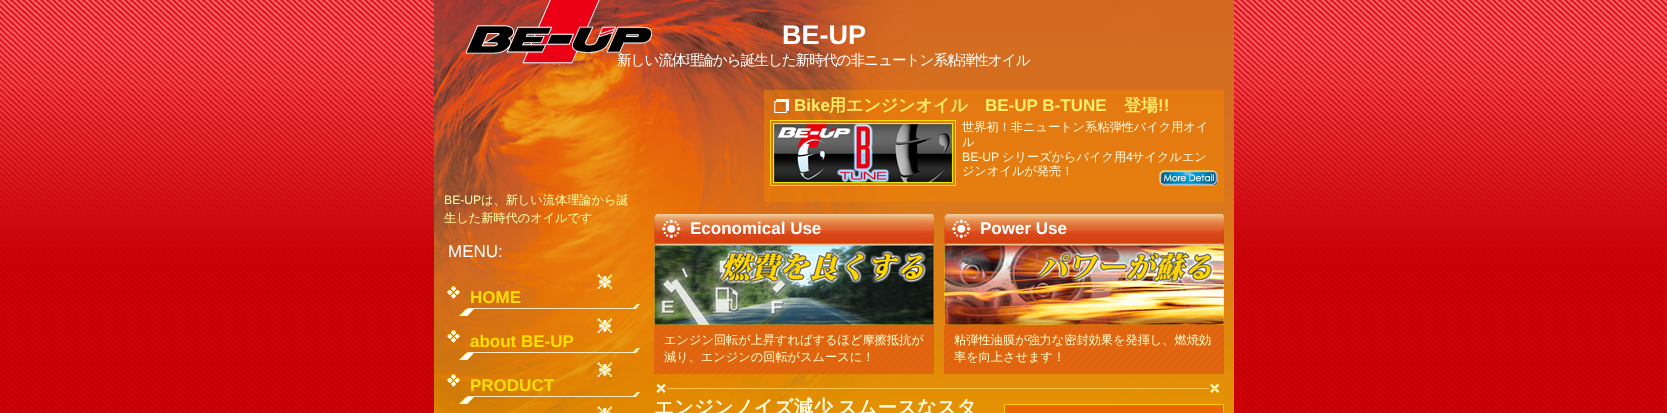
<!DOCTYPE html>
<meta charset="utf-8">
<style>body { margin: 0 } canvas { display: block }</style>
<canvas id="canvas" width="1667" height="413"></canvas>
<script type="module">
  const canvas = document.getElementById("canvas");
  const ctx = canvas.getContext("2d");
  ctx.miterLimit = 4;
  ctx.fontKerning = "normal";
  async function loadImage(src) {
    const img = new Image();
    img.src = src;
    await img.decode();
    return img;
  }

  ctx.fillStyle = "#ffffff";
  ctx.fillRect(0, 0, 1667, 413);
  ctx.drawImage(await loadImage("img1.png"), 0, 0, 1667, 413);
  ctx.drawImage(await loadImage("img2.png"), 434, 0, 800, 413);
  ctx.font = "bold 27px Liberation Sans";
  ctx.fillText("BE-UP", 782, 44);
  ctx.letterSpacing = "-1px";
  ctx.font = "500 14.6px WenQuanYi Zen Hei";
  ctx.fillText("新しい流体理論から誕生した新時代の非ニュートン系粘弾性オイル", 617, 65);
  ctx.fillStyle = "rgba(241, 131, 2, 0.5)";
  ctx.fillRect(764, 90, 460, 112);
  ctx.drawImage(await loadImage("img3.png"), 774, 99, 15, 14);
  ctx.letterSpacing = "0px";
  ctx.font = "bold 17px Liberation Sans";
  ctx.fillStyle = "#ffec68";
  ctx.fillText("Bike", 794, 111);
  ctx.font = "bold 17px WenQuanYi Zen Hei";
  ctx.fillText("用エンジンオイル", 829, 111);
  ctx.font = "bold 17px Liberation Sans";
  ctx.fillText("BE-UP B-TUNE", 985, 111);
  ctx.font = "bold 17px WenQuanYi Zen Hei";
  ctx.fillText("登場", 1124, 111);
  ctx.font = "bold 17px Liberation Sans";
  ctx.fillText("!!", 1158, 111);
  ctx.strokeStyle = "#ffdf00";
  ctx.strokeRect(770.5, 120.5, 185, 65);
  ctx.drawImage(await loadImage("img4.png"), 773, 123, 180, 60);
  ctx.font = "500 12.2px WenQuanYi Zen Hei";
  ctx.fillStyle = "#fffbdf";
  ctx.fillText("世界初！非ニュートン系粘弾性バイク用オイ", 962, 131);
  ctx.fillText("ル", 962, 146);
  ctx.font = "12.2px Liberation Sans";
  ctx.fillText("BE-UP", 962, 161);
  ctx.font = "500 12.2px WenQuanYi Zen Hei";
  ctx.fillText("シリーズからバイク用", 1002, 161);
  ctx.font = "12.2px Liberation Sans";
  ctx.fillText("4", 1126, 161);
  ctx.font = "500 12.2px WenQuanYi Zen Hei";
  ctx.fillText("サイクルエン", 1132, 161);
  ctx.fillText("ジンオイルが発売！", 962, 175);
  ctx.drawImage(await loadImage("img5.png"), 1159, 170, 59, 16);
  ctx.font = "12.2px Liberation Sans";
  ctx.fillStyle = "#ffffac";
  ctx.fillText("BE-UP", 444, 204);
  ctx.font = "500 12.2px WenQuanYi Zen Hei";
  ctx.fillText("は、新しい流体理論から誕", 481, 204);
  ctx.fillText("生した新時代のオイルです", 444, 222);
  ctx.font = "17px Liberation Sans";
  ctx.fillStyle = "#ffffff";
  ctx.fillText("MENU:", 448, 257);
  ctx.drawImage(await loadImage("img6.png"), 447, 274, 193, 42);
  ctx.font = "bold 17px Liberation Sans";
  ctx.fillStyle = "#ffdf00";
  ctx.fillText("HOME", 470, 303);
  ctx.drawImage(await loadImage("img7.png"), 447, 318, 193, 42);
  ctx.fillText("about BE-UP", 470, 347);
  ctx.drawImage(await loadImage("img8.png"), 447, 362, 193, 42);
  ctx.fillText("PRODUCT", 470, 391);
  ctx.drawImage(await loadImage("img9.png"), 597, 406, 15, 7);
  ctx.drawImage(await loadImage("img10.png"), 654, 325, 280, 49);
  ctx.drawImage(await loadImage("img11.png"), 654, 214, 280, 31);
  ctx.fillStyle = "#ffffff";
  ctx.fillText("Economical Use", 690, 234);
  ctx.drawImage(await loadImage("img12.png"), 654, 245, 280, 80);
  ctx.font = "500 12.2px WenQuanYi Zen Hei";
  ctx.fillStyle = "#ffffcc";
  ctx.fillText("エンジン回転が上昇すればするほど摩擦抵抗が", 664, 344);
  ctx.fillText("減り、エンジンの回転がスムースに！", 664, 361);
  ctx.drawImage(await loadImage("img10.png"), 944, 325, 280, 49);
  ctx.drawImage(await loadImage("img11.png"), 944, 214, 280, 31);
  ctx.font = "bold 17px Liberation Sans";
  ctx.fillStyle = "#ffffff";
  ctx.fillText("Power Use", 980, 234);
  ctx.drawImage(await loadImage("img13.png"), 944, 245, 280, 80);
  ctx.font = "500 12.2px WenQuanYi Zen Hei";
  ctx.fillStyle = "#ffffcc";
  ctx.fillText("粘弾性油膜が強力な密封効果を発揮し、燃焼効", 954, 344);
  ctx.fillText("率を向上させます！", 954, 361);
  ctx.drawImage(await loadImage("img14.png"), 656, 384, 563, 9);
  ctx.wordSpacing = "-1px";
  ctx.font = "bold 19.5px WenQuanYi Zen Hei";
  ctx.fillStyle = "#fffbdf";
  ctx.fillText("エンジンノイズ減少 スムースなスタ", 654, 414);
  ctx.fillStyle = "#ec6602";
  ctx.beginPath();
  ctx.rect(1004.5, 404.5, 219, 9);
  ctx.fill();
  ctx.strokeStyle = "#ffcc00";
  ctx.stroke();
</script>
